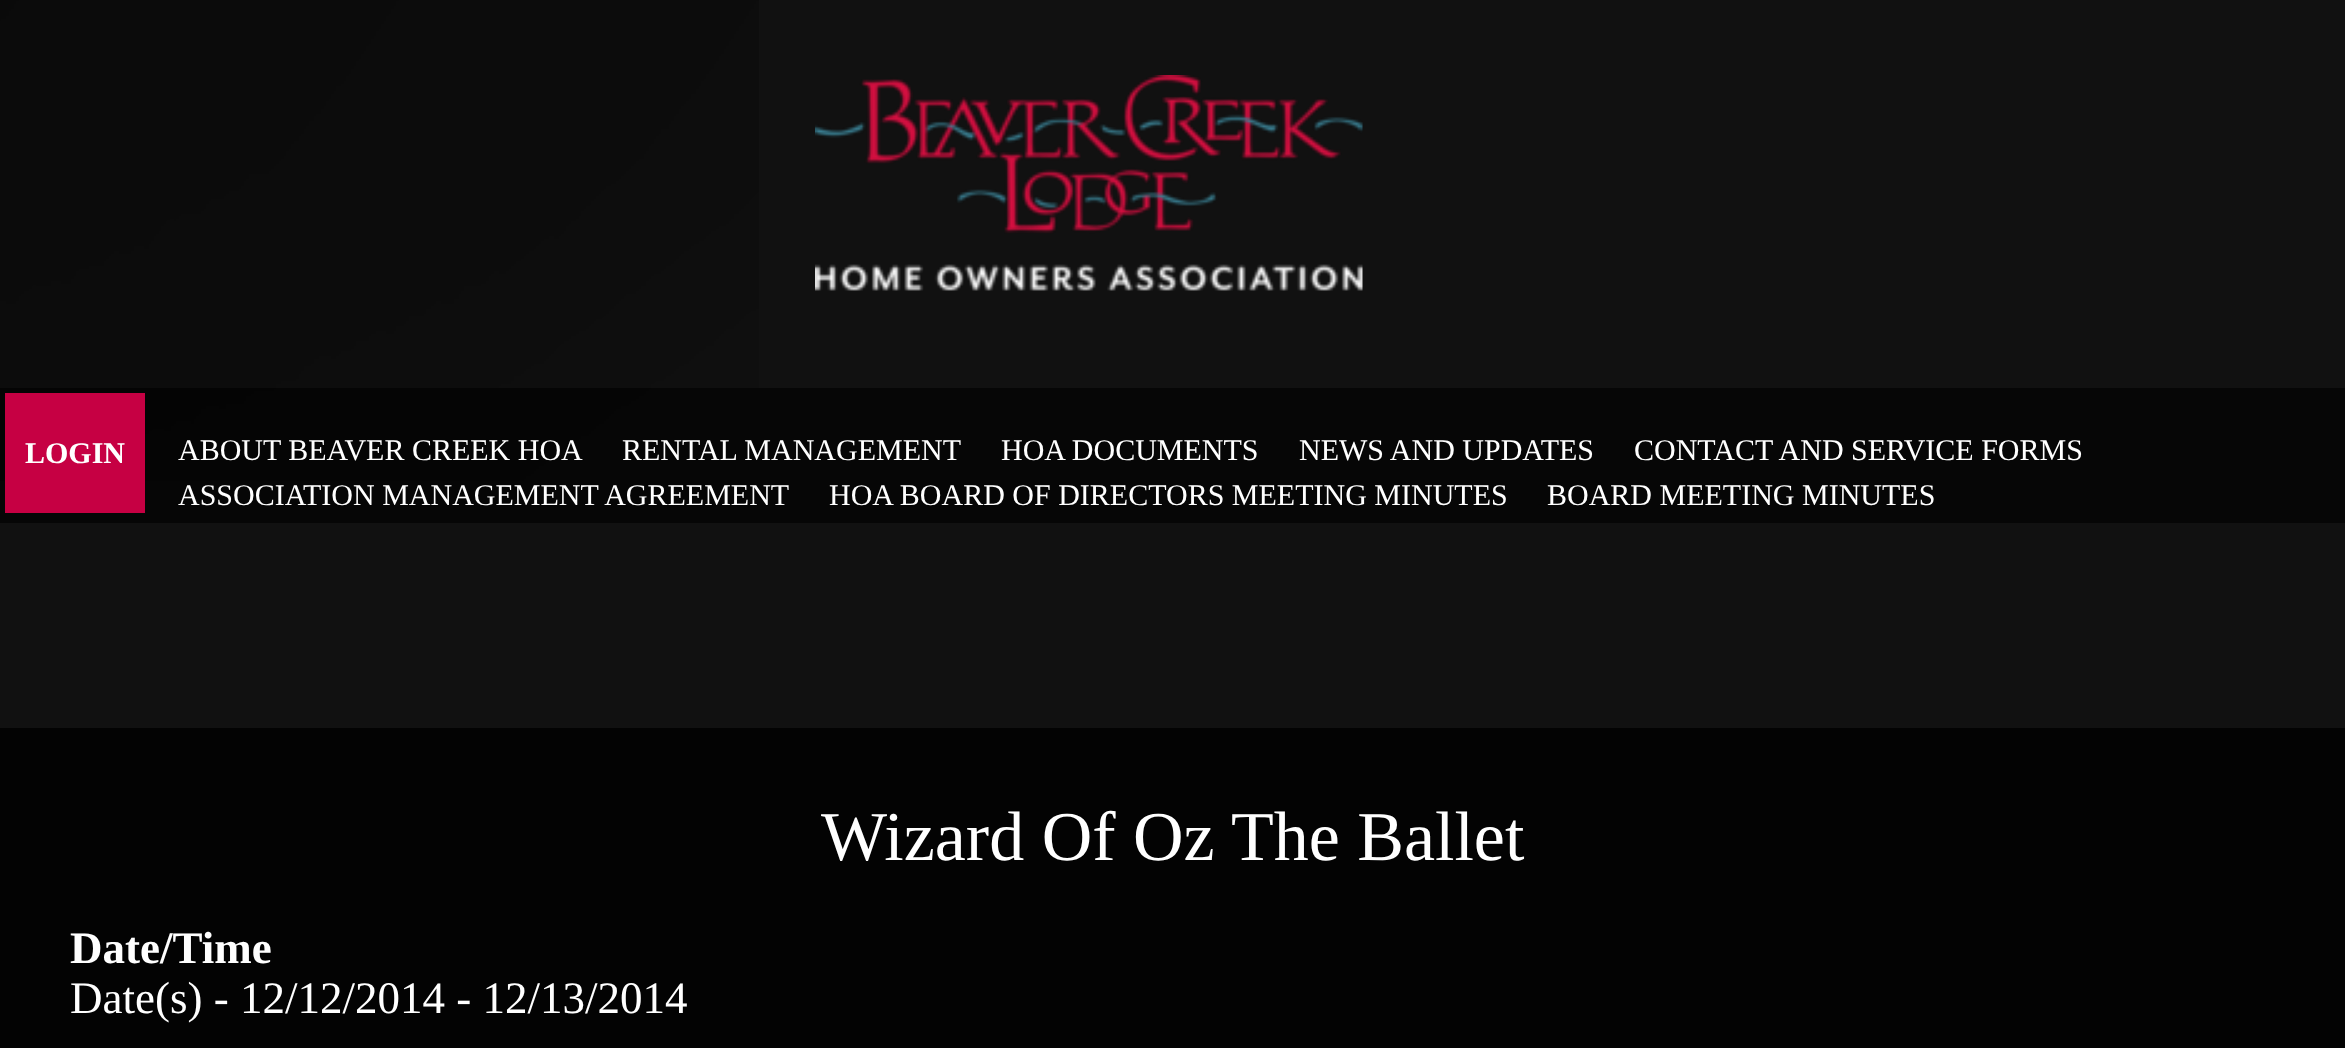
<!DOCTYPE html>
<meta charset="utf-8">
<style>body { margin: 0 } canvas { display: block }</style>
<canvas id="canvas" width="2345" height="1048"></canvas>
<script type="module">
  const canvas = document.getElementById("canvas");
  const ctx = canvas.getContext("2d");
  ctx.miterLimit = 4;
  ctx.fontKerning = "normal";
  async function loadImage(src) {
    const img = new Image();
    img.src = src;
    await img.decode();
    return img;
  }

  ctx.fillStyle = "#111111";
  ctx.fillRect(0, 0, 2345, 1048);
  ctx.drawImage(await loadImage("img1.png"), 0, 0, 759, 481);
  ctx.drawImage(await loadImage("img2.png"), 815, 75, 548, 216);
  ctx.fillStyle = "rgba(0, 0, 0, 0.6)";
  ctx.fillRect(0, 388, 2345, 135);
  ctx.fillStyle = "#c60043";
  ctx.fillRect(5, 393, 140, 120);
  ctx.font = "bold 30px Liberation Serif";
  ctx.fillStyle = "#ffffff";
  ctx.fillText("LOGIN", 25, 463);
  ctx.font = "30px Liberation Serif";
  ctx.fillText("ABOUT BEAVER CREEK HOA", 178, 460);
  ctx.fillText("RENTAL MANAGEMENT", 622, 460);
  ctx.fillText("HOA DOCUMENTS", 1001, 460);
  ctx.fillText("NEWS AND UPDATES", 1299, 460);
  ctx.fillText("CONTACT AND SERVICE FORMS", 1634, 460);
  ctx.fillText("ASSOCIATION MANAGEMENT AGREEMENT", 178, 505);
  ctx.fillText("HOA BOARD OF DIRECTORS MEETING MINUTES", 829, 505);
  ctx.fillText("BOARD MEETING MINUTES", 1547, 505);
  ctx.fillStyle = "#030303";
  ctx.fillRect(0, 728, 2345, 320);
  ctx.font = "70px Liberation Serif";
  ctx.fillStyle = "#ffffff";
  ctx.fillText("Wizard Of Oz The Ballet", 821, 860);
  ctx.font = "bold 45px Liberation Serif";
  ctx.fillText("Date/Time", 70, 963);
  ctx.font = "45px Liberation Serif";
  ctx.fillText("Date(s) - 12/12/2014 - 12/13/2014", 70, 1013);
</script>
